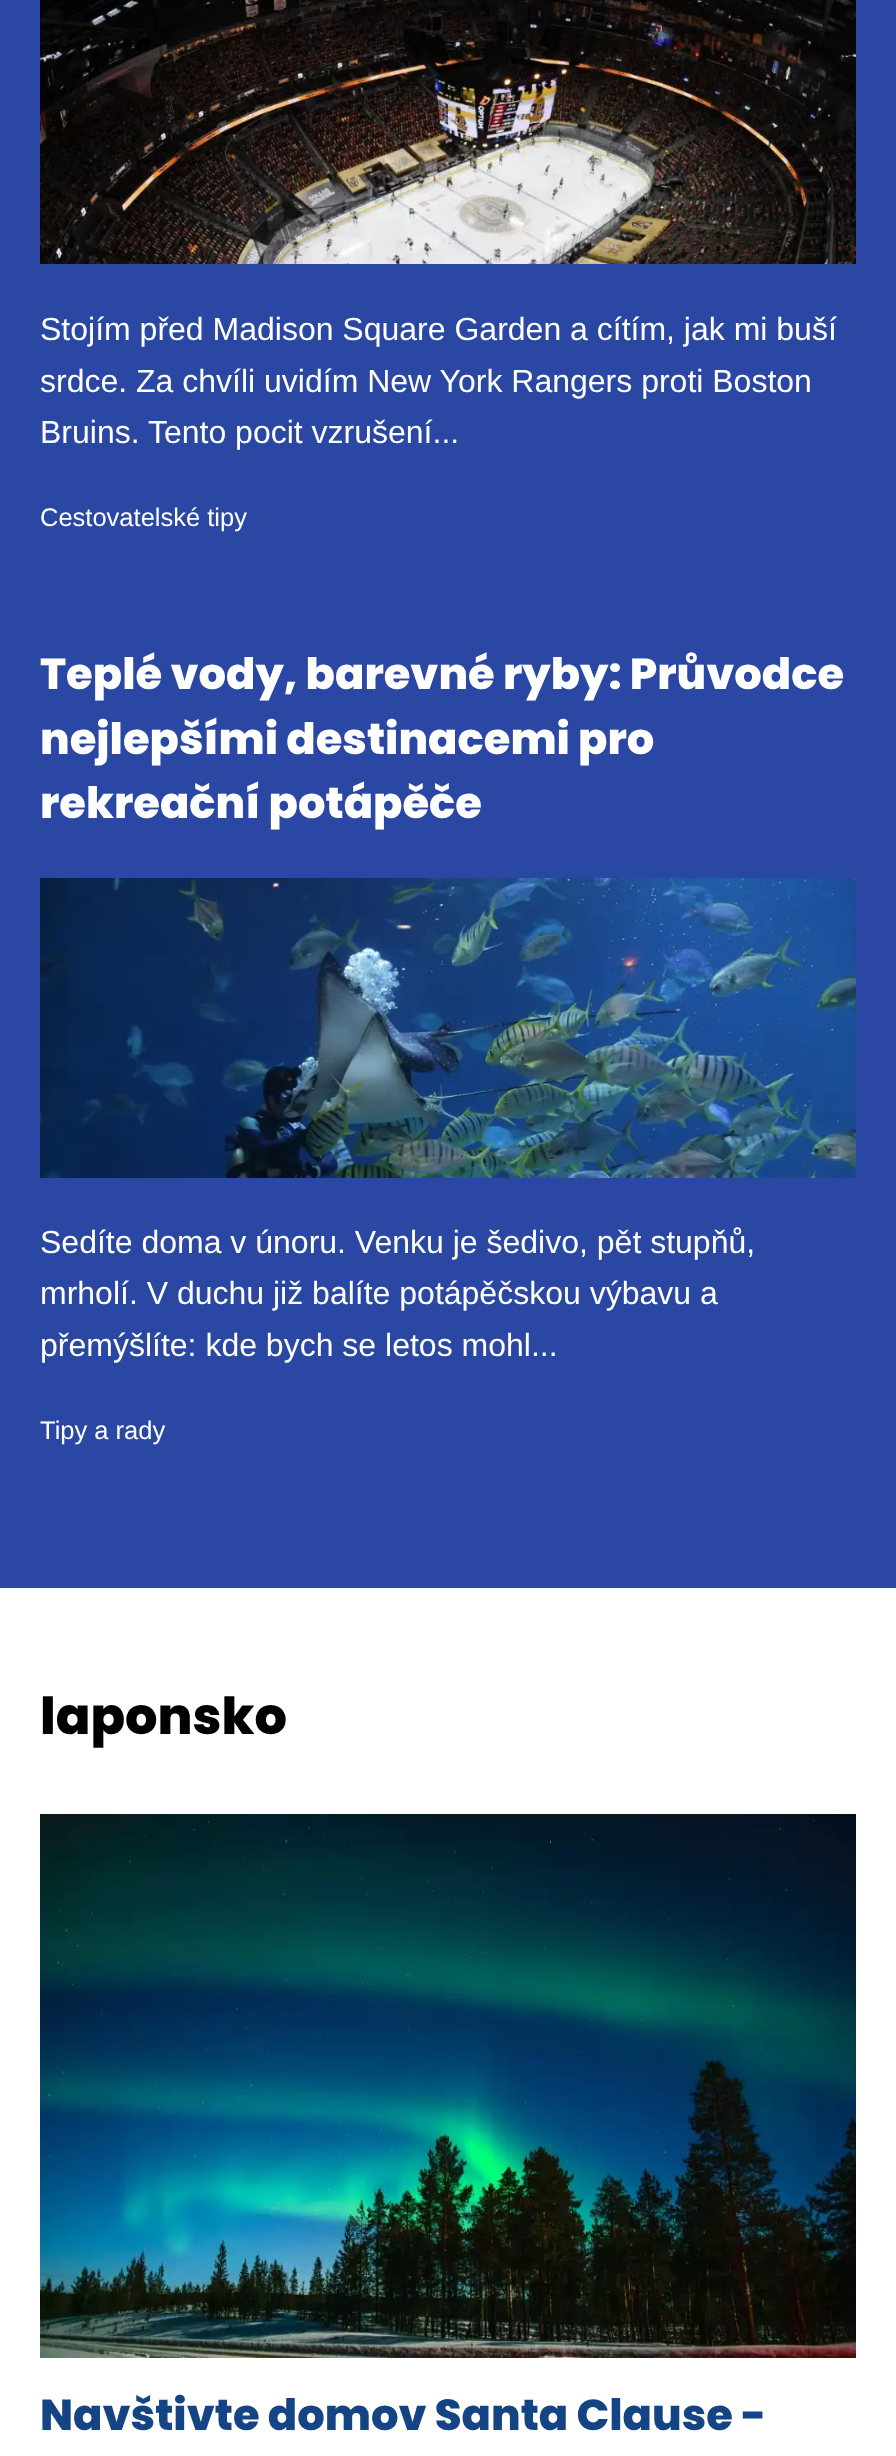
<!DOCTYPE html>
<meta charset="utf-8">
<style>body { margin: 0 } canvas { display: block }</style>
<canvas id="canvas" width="896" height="2456"></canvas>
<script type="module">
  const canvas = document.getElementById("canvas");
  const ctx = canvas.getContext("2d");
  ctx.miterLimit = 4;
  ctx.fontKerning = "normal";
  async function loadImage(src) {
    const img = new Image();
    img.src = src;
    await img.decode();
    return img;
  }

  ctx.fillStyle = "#ffffff";
  ctx.fillRect(0, 0, 896, 2456);
  ctx.fillStyle = "#2a47a3";
  ctx.fillRect(0, 0, 896, 1588);
  ctx.drawImage(await loadImage("img1.png"), 40, 0, 816, 264);
  ctx.font = "32px Liberation Sans";
  ctx.fillStyle = "#ffffff";
  ctx.fillText("Stojím před Madison Square Garden a cítím, jak mi buší", 40, 340);
  ctx.fillText("srdce. Za chvíli uvidím New York Rangers proti Boston", 40, 392);
  ctx.fillText("Bruins. Tento pocit vzrušení...", 40, 443);
  ctx.font = "25.5px Liberation Sans";
  ctx.fillText("Cestovatelské tipy", 40, 526);
  ctx.font = "800 43.25px Poppins";
  ctx.fillText("Teplé vody, barevné ryby: Průvodce", 40, 689);
  ctx.fillText("nejlepšími destinacemi pro", 40, 754);
  ctx.fillText("rekreační potápěče", 40, 818);
  ctx.drawImage(await loadImage("img2.png"), 40, 878, 816, 300);
  ctx.font = "32px Liberation Sans";
  ctx.fillText("Sedíte doma v únoru. Venku je šedivo, pět stupňů,", 40, 1253);
  ctx.fillText("mrholí. V duchu již balíte potápěčskou výbavu a", 40, 1304);
  ctx.fillText("přemýšlíte: kde bych se letos mohl...", 40, 1356);
  ctx.font = "25.5px Liberation Sans";
  ctx.fillText("Tipy a rady", 40, 1439);
  ctx.font = "800 51px Poppins";
  ctx.fillStyle = "#000000";
  ctx.fillText("laponsko", 40, 1734);
  ctx.drawImage(await loadImage("img3.png"), 40, 1814, 816, 544);
  ctx.font = "800 43.25px Poppins";
  ctx.fillStyle = "#154484";
  ctx.fillText("Navštivte domov Santa Clause -", 40, 2430);
</script>
